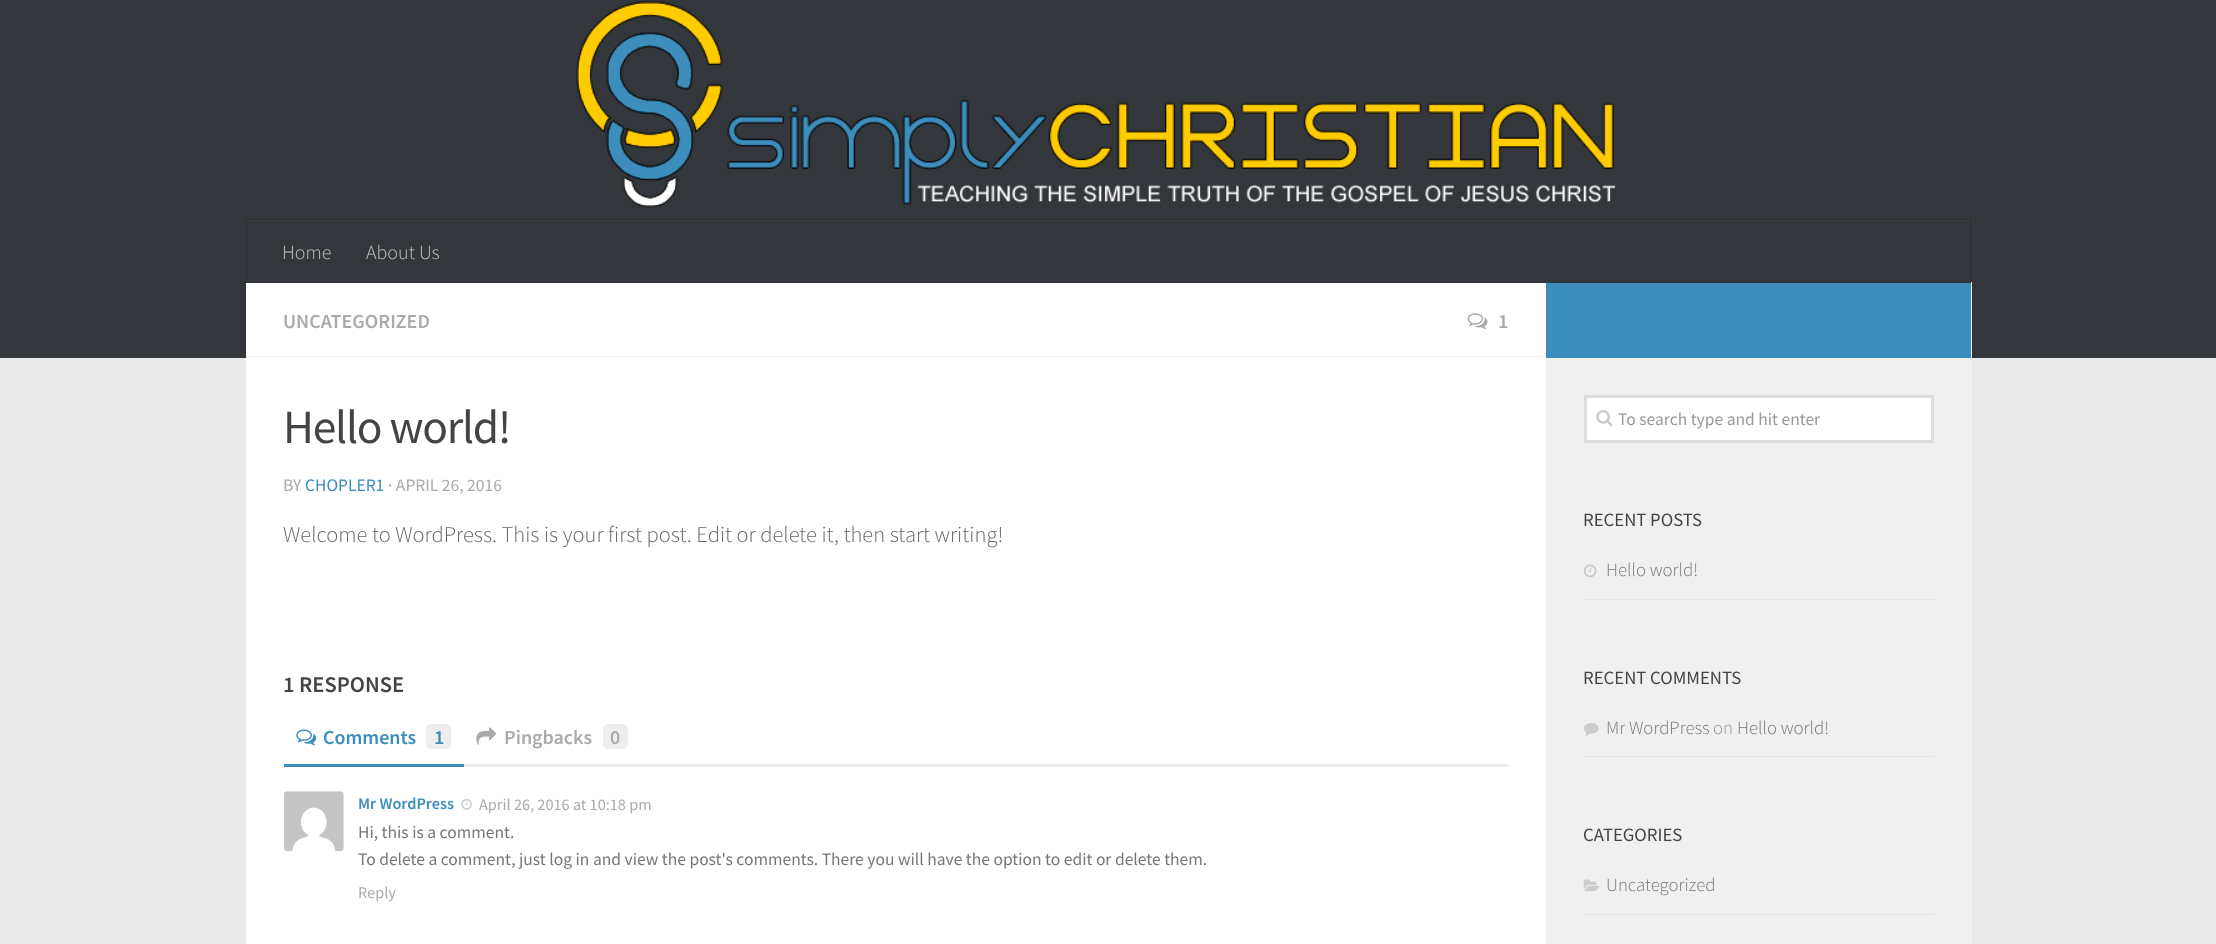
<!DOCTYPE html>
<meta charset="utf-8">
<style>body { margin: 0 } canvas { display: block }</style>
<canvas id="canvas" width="2216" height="944"></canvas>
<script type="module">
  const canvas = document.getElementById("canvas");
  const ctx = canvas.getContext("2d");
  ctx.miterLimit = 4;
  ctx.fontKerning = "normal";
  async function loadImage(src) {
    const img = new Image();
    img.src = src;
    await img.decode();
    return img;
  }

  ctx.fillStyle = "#eaeaea";
  ctx.fillRect(0, 0, 2216, 944);
  ctx.fillStyle = "#33363b";
  ctx.fillRect(0, 0, 2216, 358);
  ctx.drawImage(await loadImage("img1.png"), 576, 1, 1040, 207);
  ctx.fillStyle = "#292b2f";
  ctx.beginPath();
  ctx.moveTo(246, 219);
  ctx.lineTo(246, 281);
  ctx.lineTo(246, 220);
  ctx.lineTo(1971, 220);
  ctx.lineTo(1971, 219);
  ctx.closePath();
  ctx.fill();
  ctx.fillStyle = "#f0f0f0";
  ctx.fillRect(1546, 282, 426, 662);
  ctx.fillStyle = "#33363b";
  ctx.fillRect(1546, 282, 424, 1);
  ctx.fillStyle = "#3d4045";
  ctx.fillRect(246, 220, 1725, 1);
  ctx.fillStyle = "#292b2f";
  ctx.fillRect(1970, 220, 1, 63);
  ctx.fillStyle = "#343639";
  ctx.fillRect(1970, 220, 1, 1);
  ctx.fillStyle = "#292b2f";
  ctx.fillRect(246, 220, 1, 63);
  ctx.fillStyle = "#343639";
  ctx.fillRect(246, 220, 1, 1);
  ctx.font = "300 20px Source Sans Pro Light";
  ctx.fillStyle = "#c2c3c4";
  ctx.fillText("Home", 282, 259);
  ctx.fillText("About Us", 366, 259);
  ctx.fillStyle = "#ffffff";
  ctx.fillRect(246, 283, 1300, 661);
  ctx.fillStyle = "#eeeeee";
  ctx.fillRect(246, 356, 1300, 1);
  ctx.font = "600 20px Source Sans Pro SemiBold";
  ctx.fillStyle = "#aaaaaa";
  ctx.fillText("UNCATEGORIZED", 283, 328);
  ctx.drawImage(await loadImage("img2.png"), 1467, 313, 21, 16);
  ctx.fillText("1", 1498, 328);
  ctx.letterSpacing = "-1.25px";
  ctx.font = "47.5px Source Sans Pro";
  ctx.fillStyle = "#444444";
  ctx.fillText("Hello world!", 283, 443);
  ctx.letterSpacing = "0px";
  ctx.font = "17.5px Source Sans Pro";
  ctx.fillStyle = "#aaaaaa";
  ctx.fillText("BY", 283, 491);
  ctx.fillStyle = "#3b8dbd";
  ctx.fillText("CHOPLER1", 305, 491);
  ctx.fillStyle = "#aaaaaa";
  ctx.fillText("· APRIL 26, 2016", 388, 491);
  ctx.font = "300 22.5px Source Sans Pro Light";
  ctx.fillStyle = "#666666";
  ctx.fillText("Welcome to WordPress. This is your first post. Edit or delete it, then start writing!", 283, 542);
  ctx.font = "600 22.5px Source Sans Pro SemiBold";
  ctx.fillStyle = "#444444";
  ctx.fillText("1 RESPONSE", 283, 692);
  ctx.fillStyle = "#eeeeee";
  ctx.fillRect(464, 764, 1045, 3);
  ctx.fillStyle = "#3b8dbd";
  ctx.fillRect(284, 764, 180, 3);
  ctx.drawImage(await loadImage("img3.png"), 296, 729, 21, 17);
  ctx.font = "600 20px Source Sans Pro SemiBold";
  ctx.fillText("Comments", 323, 744);
  ctx.fillStyle = "#eeeeee";
  ctx.beginPath();
  ctx.roundRect(426, 724, 25, 25, 5);
  ctx.fill();
  ctx.fillStyle = "#3b8dbd";
  ctx.fillText("1", 434, 744);
  ctx.drawImage(await loadImage("img4.png"), 476, 727, 21, 19);
  ctx.fillStyle = "#aaaaaa";
  ctx.fillText("Pingbacks", 504, 744);
  ctx.fillStyle = "#eeeeee";
  ctx.beginPath();
  ctx.roundRect(603, 724, 25, 25, 5);
  ctx.fill();
  ctx.fillStyle = "#aaaaaa";
  ctx.fillText("0", 610, 744);
  ctx.drawImage(await loadImage("img5.png"), 284, 791, 60, 61);
  ctx.font = "600 16.25px Source Sans Pro SemiBold";
  ctx.fillStyle = "#3b8dbd";
  ctx.fillText("Mr WordPress", 358, 809);
  ctx.drawImage(await loadImage("img6.png"), 461, 799, 11, 11);
  ctx.font = "16.25px Source Sans Pro";
  ctx.fillStyle = "#aaaaaa";
  ctx.fillText("April 26, 2016 at 10:18 pm", 479, 810);
  ctx.font = "17.5px Source Sans Pro";
  ctx.fillStyle = "#777777";
  ctx.fillText("Hi, this is a comment.", 358, 838);
  ctx.fillText("To delete a comment, just log in and view the post's comments. There you will have the option to edit or delete them.", 358, 865);
  ctx.font = "16.25px Source Sans Pro";
  ctx.fillStyle = "#aaaaaa";
  ctx.fillText("Reply", 358, 898);
  ctx.fillStyle = "#3b8dbd";
  ctx.fillRect(1546, 283, 425, 75);
  ctx.fillStyle = "#ffffff";
  ctx.beginPath();
  ctx.rect(1585.5, 396.5, 347, 45);
  ctx.fill();
  ctx.strokeStyle = "#dddddd";
  ctx.lineWidth = 3;
  ctx.stroke();
  ctx.drawImage(await loadImage("img7.png"), 1596, 410, 17, 17);
  ctx.font = "17.5px Source Sans Pro";
  ctx.fillStyle = "#999999";
  ctx.fillText("To search type and hit enter", 1618, 425);
  ctx.font = "18.75px Source Sans Pro";
  ctx.fillStyle = "#444444";
  ctx.fillText("RECENT POSTS", 1583, 526);
  ctx.fillStyle = "#e4e4e4";
  ctx.fillRect(1584, 599, 350, 1);
  ctx.drawImage(await loadImage("img8.png"), 1583, 564, 14, 14);
  ctx.font = "300 18.75px Source Sans Pro Light";
  ctx.fillStyle = "#777777";
  ctx.fillText("Hello world!", 1606, 576);
  ctx.font = "18.75px Source Sans Pro";
  ctx.fillStyle = "#444444";
  ctx.fillText("RECENT COMMENTS", 1583, 684);
  ctx.fillStyle = "#e4e4e4";
  ctx.fillRect(1584, 756, 350, 1);
  ctx.drawImage(await loadImage("img9.png"), 1583, 723, 16, 13);
  ctx.font = "300 18.75px Source Sans Pro Light";
  ctx.fillStyle = "#777777";
  ctx.fillText("Mr WordPress", 1606, 734);
  ctx.fillStyle = "#999999";
  ctx.fillText("on", 1713, 734);
  ctx.fillStyle = "#777777";
  ctx.fillText("Hello world!", 1737, 734);
  ctx.font = "18.75px Source Sans Pro";
  ctx.fillStyle = "#444444";
  ctx.fillText("CATEGORIES", 1583, 841);
  ctx.fillStyle = "#e4e4e4";
  ctx.fillRect(1584, 914, 350, 1);
  ctx.drawImage(await loadImage("img10.png"), 1583, 879, 17, 13);
  ctx.font = "300 18.75px Source Sans Pro Light";
  ctx.fillStyle = "#777777";
  ctx.fillText("Uncategorized", 1606, 891);
</script>
